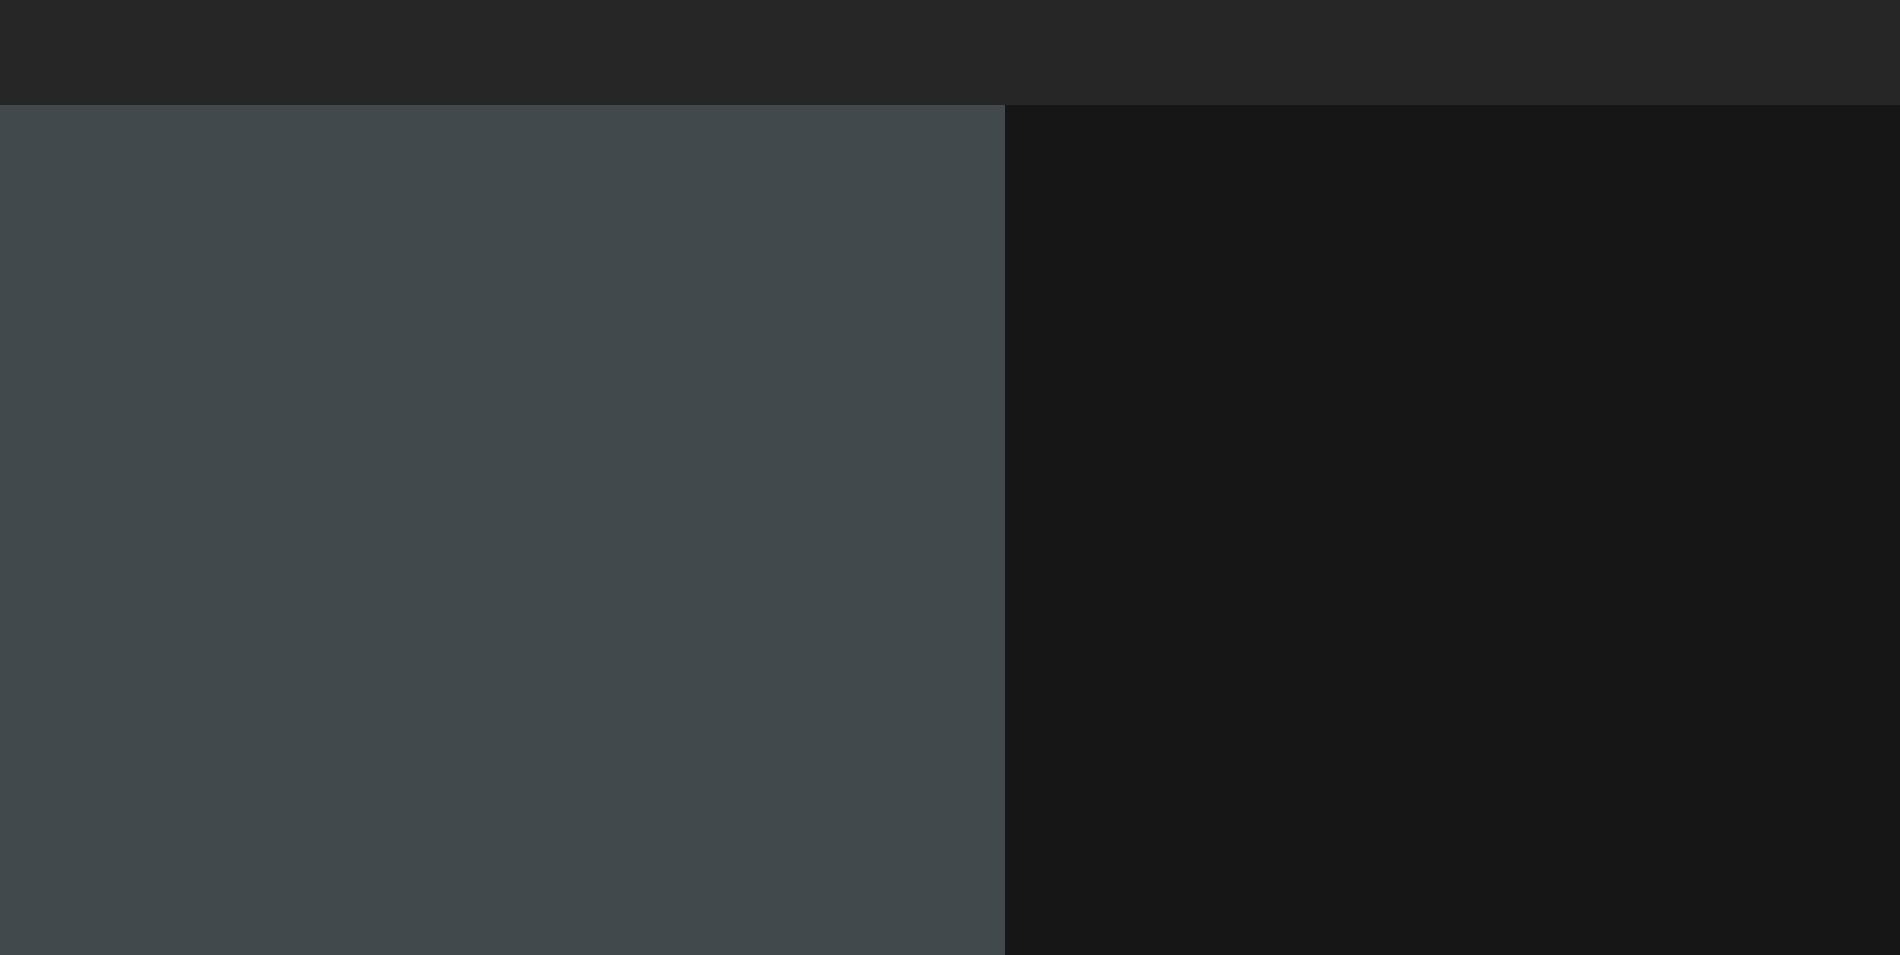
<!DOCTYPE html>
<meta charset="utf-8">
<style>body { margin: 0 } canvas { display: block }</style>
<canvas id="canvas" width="1900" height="955"></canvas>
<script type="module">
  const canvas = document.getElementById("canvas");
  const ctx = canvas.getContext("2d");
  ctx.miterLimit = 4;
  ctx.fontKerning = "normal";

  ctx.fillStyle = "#262626";
  ctx.fillRect(0, 0, 1900, 955);
  ctx.fillStyle = "#41494d";
  ctx.fillRect(0, 105, 1005, 850);
  ctx.fillStyle = "#161616";
  ctx.fillRect(1005, 105, 895, 850);
</script>
